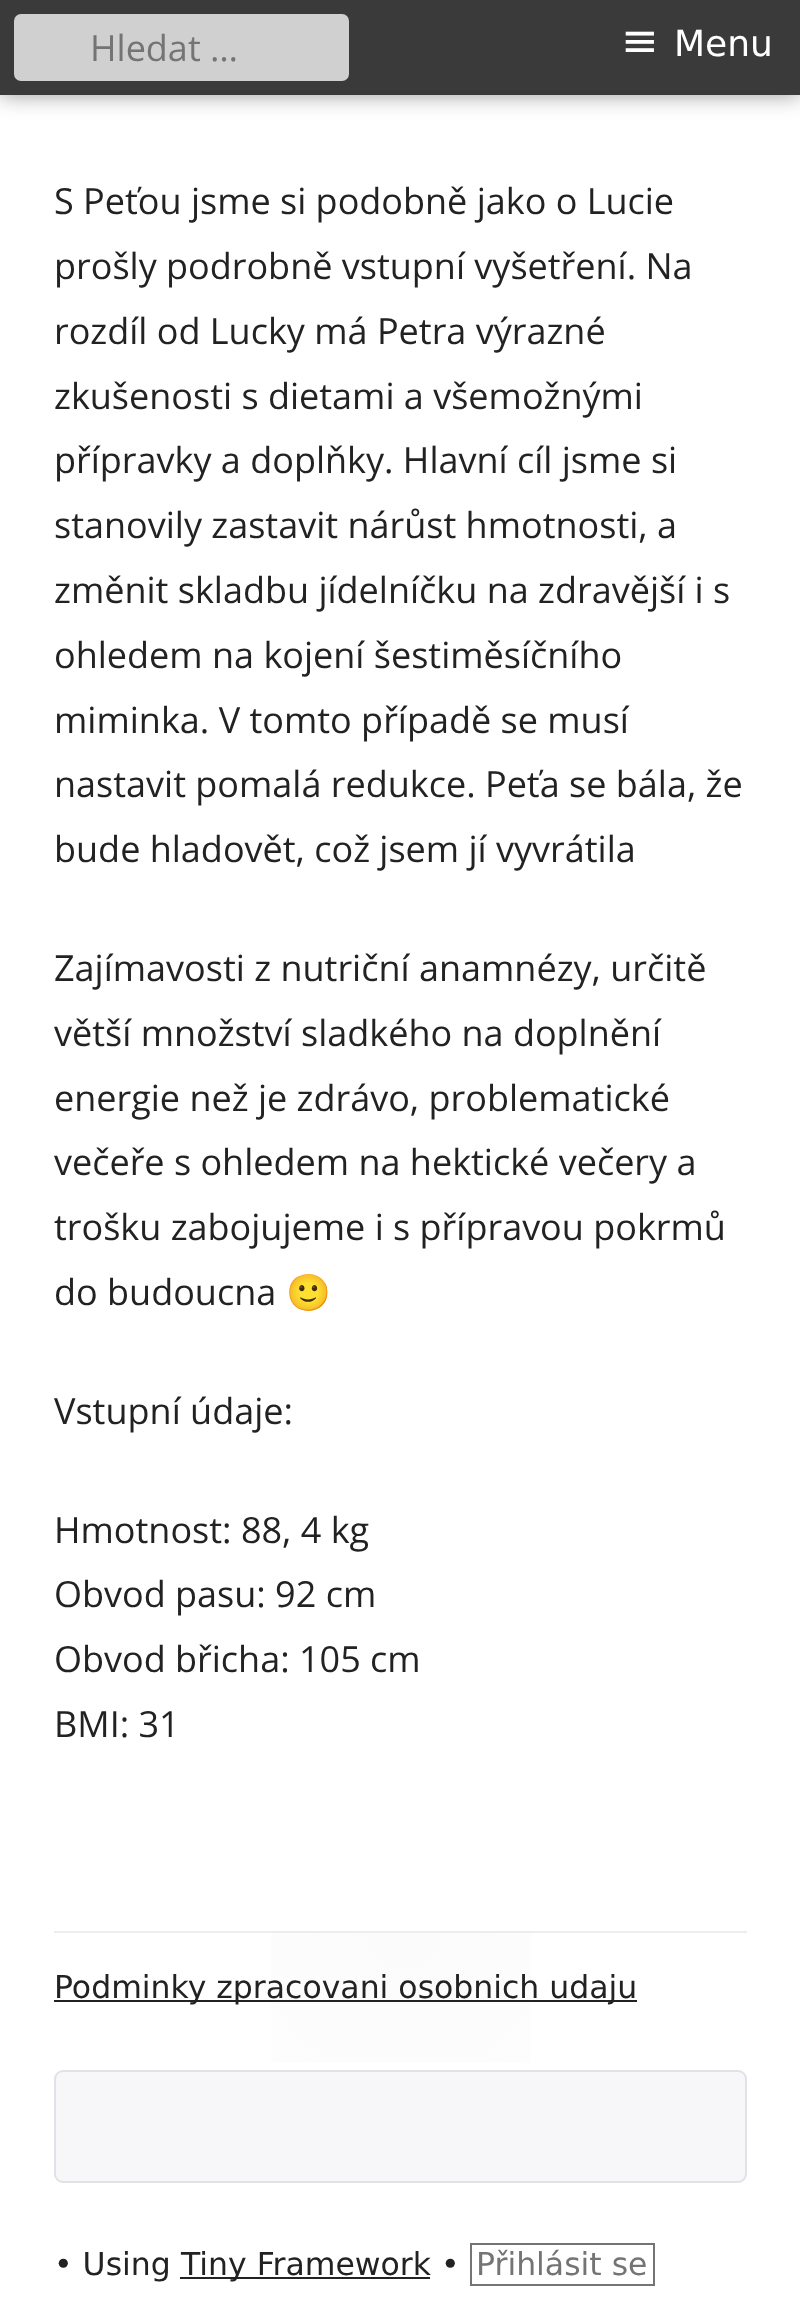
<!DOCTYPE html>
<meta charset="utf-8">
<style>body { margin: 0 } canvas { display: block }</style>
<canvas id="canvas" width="800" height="2300"></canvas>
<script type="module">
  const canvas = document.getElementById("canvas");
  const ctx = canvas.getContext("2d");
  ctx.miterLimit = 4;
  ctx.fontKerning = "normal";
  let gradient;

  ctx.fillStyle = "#ffffff";
  ctx.fillRect(0, 0, 800, 2300);
  ctx.fillStyle = "rgba(0, 0, 0, 0.4)";
  ctx.filter = "blur(11px)";
  ctx.beginPath();
  ctx.rect(0, 0, 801, 95);
  ctx.fill();
  ctx.filter = "none";
  ctx.fillStyle = "#3a3a3a";
  ctx.fillRect(0, 0, 800, 95);
  ctx.fillStyle = "#d0d0d0";
  ctx.beginPath();
  ctx.roundRect(14, 14, 335, 67, 7);
  ctx.fill();
  ctx.font = "36px Open Sans";
  ctx.fillStyle = "#747474";
  ctx.fillText("Hledat …", 90, 61);
  ctx.font = "45px DejaVu Sans";
  ctx.fillStyle = "#ffffff";
  ctx.fillText("≡", 621, 56);
  ctx.font = "36px DejaVu Sans";
  ctx.fillText("Menu", 674, 56);
  ctx.font = "36px Open Sans";
  ctx.fillStyle = "#222222";
  ctx.fillText("S Peťou jsme si podobně jako o Lucie", 54, 214);
  ctx.fillText("prošly podrobně vstupní vyšetření. Na", 54, 279);
  ctx.fillText("rozdíl od Lucky má Petra výrazné", 54, 344);
  ctx.fillText("zkušenosti s dietami a všemožnými", 54, 409);
  ctx.fillText("přípravky a doplňky. Hlavní cíl jsme si", 54, 473);
  ctx.fillText("stanovily zastavit nárůst hmotnosti, a", 54, 538);
  ctx.fillText("změnit skladbu jídelníčku na zdravější i s", 54, 603);
  ctx.fillText("ohledem na kojení šestiměsíčního", 54, 668);
  ctx.fillText("miminka. V tomto případě se musí", 54, 733);
  ctx.fillText("nastavit pomalá redukce. Peťa se bála, že", 54, 797);
  ctx.fillText("bude hladovět, což jsem jí vyvrátila", 54, 862);
  ctx.fillText("Zajímavosti z nutriční anamnézy, určitě", 54, 981);
  ctx.fillText("větší množství sladkého na doplnění", 54, 1046);
  ctx.fillText("energie než je zdrávo, problematické", 54, 1111);
  ctx.fillText("večeře s ohledem na hektické večery a", 54, 1175);
  ctx.fillText("trošku zabojujeme i s přípravou pokrmů", 54, 1240);
  ctx.fillText("do budoucna", 54, 1305);
  ctx.font = "36px Noto Color Emoji";
  ctx.fillText("🙂", 286, 1305);
  ctx.font = "36px Open Sans";
  ctx.fillText("Vstupní údaje:", 54, 1424);
  ctx.fillText("Hmotnost: 88, 4 kg", 54, 1543);
  ctx.fillText("Obvod pasu: 92 cm", 54, 1607);
  ctx.fillText("Obvod břicha: 105 cm", 54, 1672);
  ctx.fillText("BMI: 31", 54, 1737);
  gradient = ctx.createRadialGradient(401, 1933, 0, 401, 1933, 347);
  gradient.addColorStop(0, "#fbfbfb");
  gradient.addColorStop(1, "#ffffff");
  ctx.fillStyle = gradient;
  ctx.fillRect(271, 1933, 260, 130);
  ctx.fillStyle = "#ededed";
  ctx.fillRect(54, 1931, 693, 2);
  ctx.fillStyle = "#222222";
  ctx.fillRect(54, 2000, 583, 2);
  ctx.font = "31.5px DejaVu Sans";
  ctx.fillText("Podminky zpracovani osobnich udaju", 54, 1998);
  ctx.fillStyle = "#f7f7f9";
  ctx.beginPath();
  ctx.roundRect(55, 2071, 691, 111, 8);
  ctx.fill();
  ctx.strokeStyle = "#e1e1e8";
  ctx.lineWidth = 2;
  ctx.stroke();
  ctx.fillStyle = "#222222";
  ctx.fillText("• Using", 54, 2275);
  ctx.fillRect(180, 2277, 250, 2);
  ctx.fillText("Tiny Framework •", 181, 2275);
  ctx.strokeStyle = "#747474";
  ctx.strokeRect(471, 2244, 183, 41);
  ctx.fillStyle = "#747474";
  ctx.fillText("Přihlásit se", 476, 2275);
</script>
